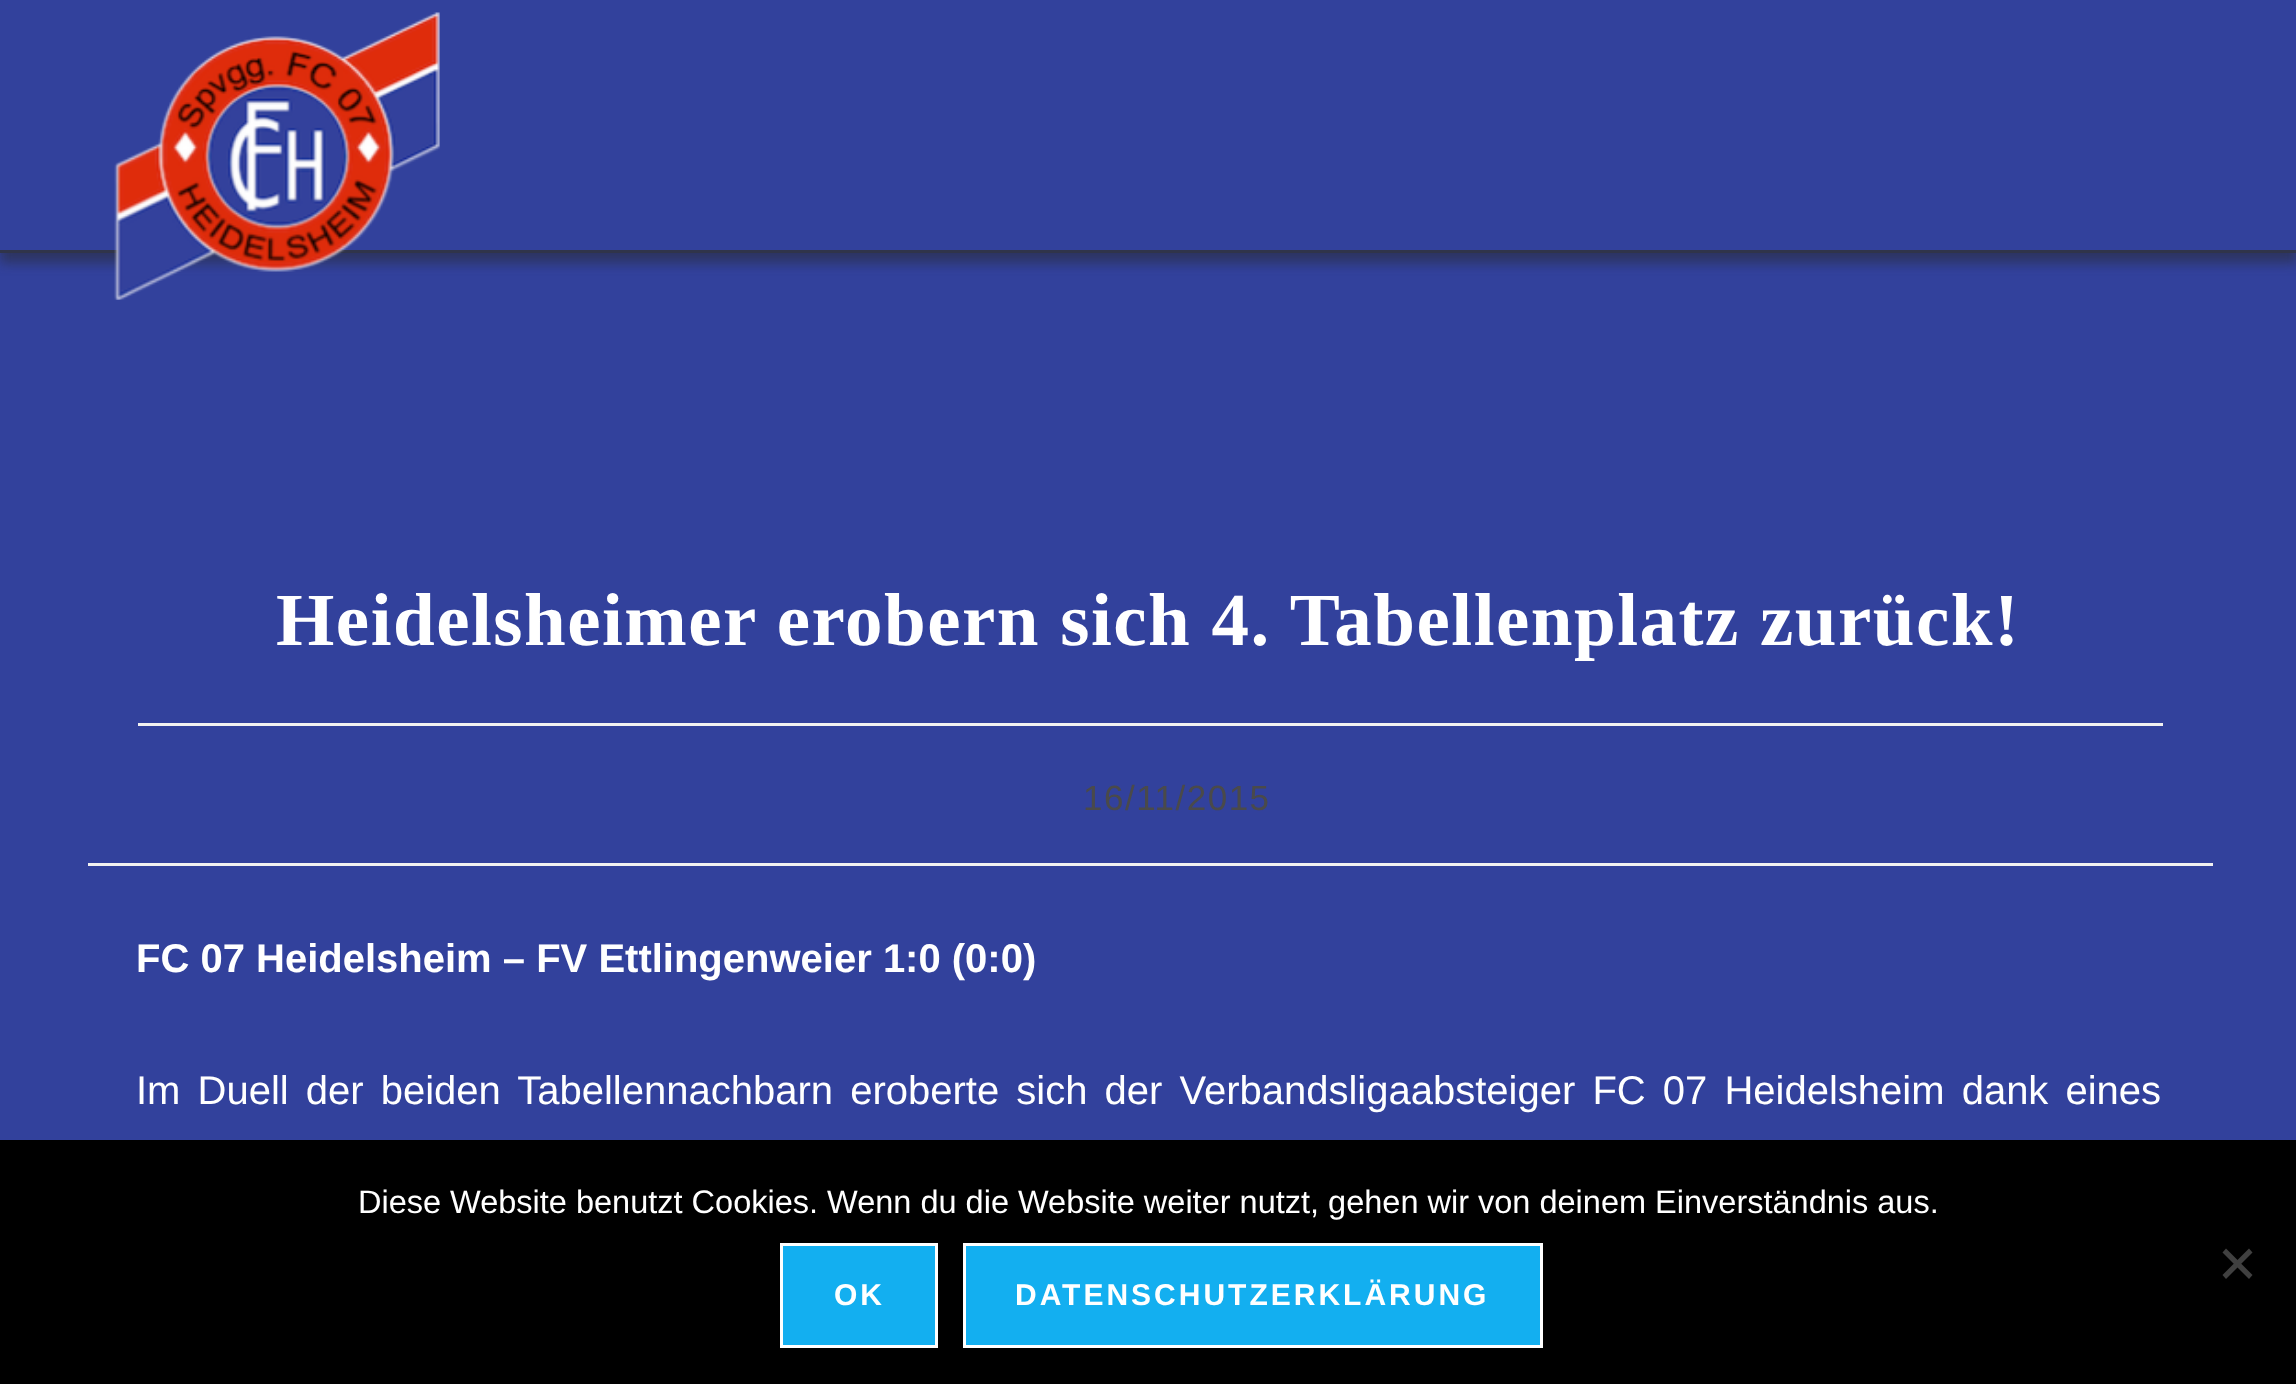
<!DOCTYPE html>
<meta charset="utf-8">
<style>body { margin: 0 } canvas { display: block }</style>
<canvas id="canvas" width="2296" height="1384"></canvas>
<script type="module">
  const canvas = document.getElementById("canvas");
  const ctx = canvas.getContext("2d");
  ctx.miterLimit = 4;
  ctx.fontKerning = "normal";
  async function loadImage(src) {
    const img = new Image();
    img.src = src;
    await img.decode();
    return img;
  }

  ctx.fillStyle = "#32419c";
  ctx.fillRect(0, 0, 2296, 1384);
  ctx.fillStyle = "rgba(39, 39, 39, 0.5)";
  ctx.filter = "blur(6px)";
  ctx.beginPath();
  ctx.rect(0, 10, 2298, 253);
  ctx.fill();
  ctx.filter = "none";
  ctx.fillStyle = "#32419c";
  ctx.fillRect(0, 0, 2296, 250);
  ctx.fillStyle = "#30344a";
  ctx.fillRect(0, 250, 2296, 3);
  ctx.drawImage(await loadImage("img1.png"), 114, 12, 326, 288);
  ctx.fillStyle = "#f1f1f1";
  ctx.fillRect(138, 723, 2025, 3);
  ctx.letterSpacing = "1.5px";
  ctx.font = "bold 75px Liberation Serif";
  ctx.fillStyle = "#ffffff";
  ctx.fillText("Heidelsheimer erobern sich 4. Tabellenplatz zurück!", 276, 645);
  ctx.fillStyle = "#f1f1f1";
  ctx.fillRect(88, 863, 2125, 3);
  ctx.font = "35px Liberation Sans";
  ctx.fillStyle = "#4a4a4a";
  ctx.fillText("16/11/2015", 1083, 810);
  ctx.letterSpacing = "0px";
  ctx.font = "bold 40px Liberation Sans";
  ctx.fillStyle = "#ffffff";
  ctx.fillText("FC 07 Heidelsheim – FV Ettlingenweier 1:0 (0:0)", 136, 972);
  ctx.wordSpacing = "6px";
  ctx.font = "40px Liberation Sans";
  ctx.fillText("Im Duell der beiden Tabellennachbarn eroberte sich der Verbandsligaabsteiger FC 07 Heidelsheim dank eines", 136, 1104);
  ctx.fillStyle = "#000000";
  ctx.fillRect(0, 1140, 2296, 244);
  ctx.wordSpacing = "0px";
  ctx.font = "32.5px Liberation Sans";
  ctx.fillStyle = "#ffffff";
  ctx.fillText("Diese Website benutzt Cookies. Wenn du die Website weiter nutzt, gehen wir von deinem Einverständnis aus.", 358, 1213);
  ctx.fillStyle = "#404040";
  ctx.beginPath();
  ctx.moveTo(2249, 1248.5);
  ctx.lineTo(2252.5, 1252.5);
  ctx.lineTo(2226, 1279);
  ctx.lineTo(2222.5, 1275);
  ctx.closePath();
  ctx.fill();
  ctx.beginPath();
  ctx.moveTo(2222.5, 1252.5);
  ctx.lineTo(2226, 1248.5);
  ctx.lineTo(2252.5, 1275);
  ctx.lineTo(2249, 1279);
  ctx.closePath();
  ctx.fill();
  ctx.fillStyle = "#13aff0";
  ctx.beginPath();
  ctx.rect(781.5, 1244.5, 155, 102);
  ctx.fill();
  ctx.strokeStyle = "#ffffff";
  ctx.lineWidth = 3;
  ctx.stroke();
  ctx.letterSpacing = "3px";
  ctx.font = "bold 30px Liberation Sans";
  ctx.fillStyle = "#ffffff";
  ctx.fillText("OK", 834, 1305);
  ctx.fillStyle = "#13aff0";
  ctx.beginPath();
  ctx.rect(964.5, 1244.5, 577, 102);
  ctx.fill();
  ctx.stroke();
  ctx.fillStyle = "#ffffff";
  ctx.fillText("DATENSCHUTZERKLÄRUNG", 1015, 1305);
</script>
